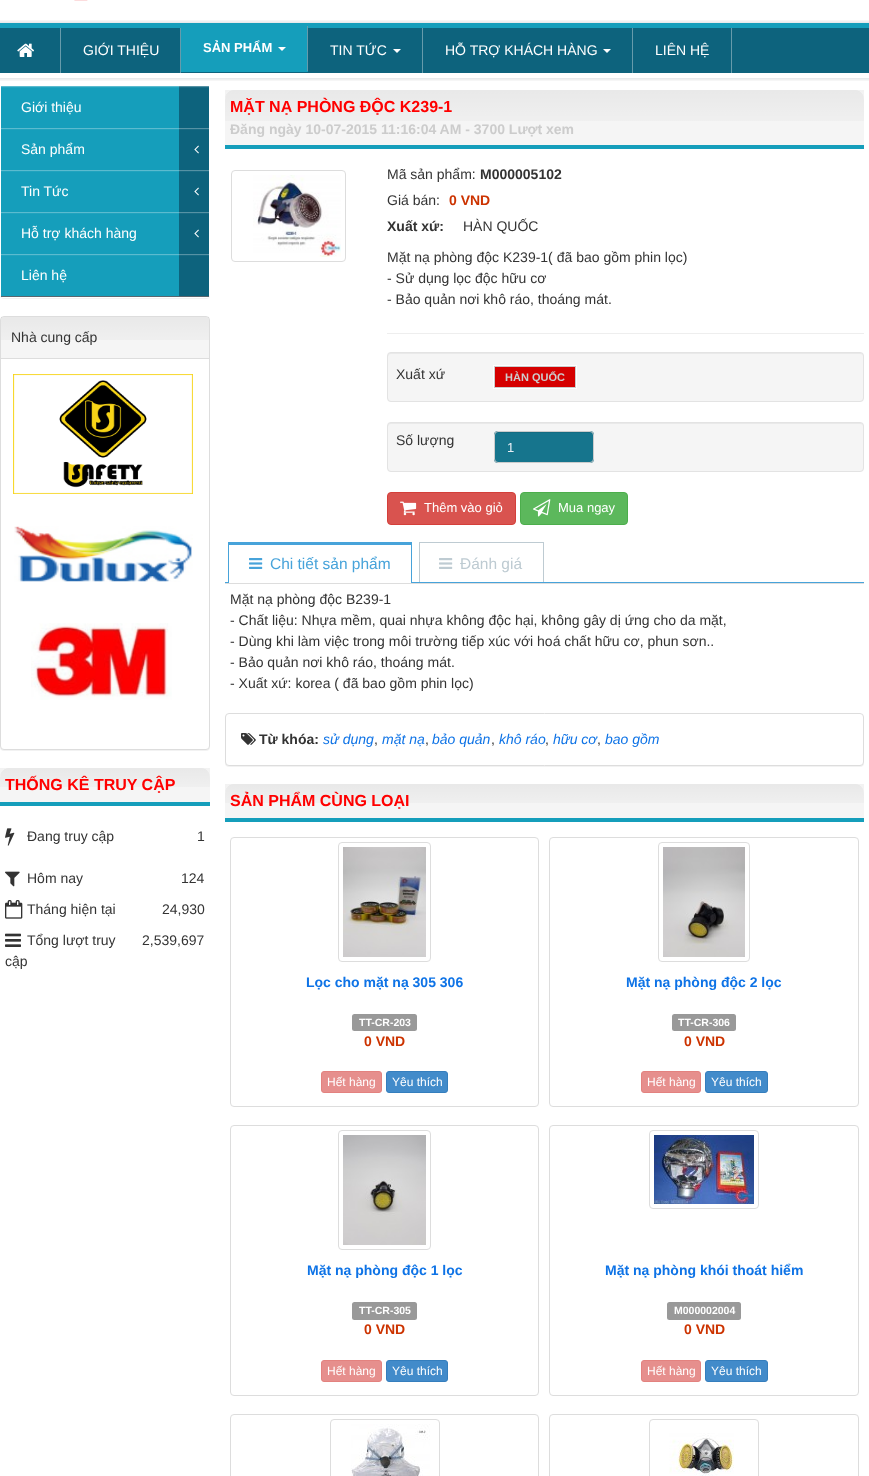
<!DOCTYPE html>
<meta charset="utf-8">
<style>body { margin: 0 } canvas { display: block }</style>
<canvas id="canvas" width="869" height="1476"></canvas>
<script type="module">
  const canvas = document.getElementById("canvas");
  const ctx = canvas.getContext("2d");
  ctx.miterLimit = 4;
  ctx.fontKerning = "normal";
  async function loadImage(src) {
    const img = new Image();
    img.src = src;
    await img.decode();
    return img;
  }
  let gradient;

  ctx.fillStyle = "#ffffff";
  ctx.fillRect(0, 0, 869, 1476);
  ctx.drawImage(await loadImage("img1.png"), 74, 0, 14, 1);
  ctx.drawImage(await loadImage("img2.png"), 0, 20, 869, 61);
  ctx.fillStyle = "#669bab";
  ctx.fillRect(60, 28, 1, 45);
  ctx.drawImage(await loadImage("img3.png"), 17, 43, 17, 14);
  ctx.fillRect(180, 28, 1, 45);
  ctx.font = "14px Liberation Sans";
  ctx.fillStyle = "#ffffff";
  ctx.fillText("GIỚI THIỆU", 83, 55);
  ctx.fillStyle = "#159ebb";
  ctx.fillRect(181, 28, 127, 44);
  ctx.fillStyle = "#669bab";
  ctx.fillRect(307, 26, 1, 45);
  ctx.font = "bold 13px Liberation Sans";
  ctx.fillStyle = "#ffffff";
  ctx.fillText("SẢN PHẨM", 203, 52);
  ctx.fillStyle = "#fefefe";
  ctx.beginPath();
  ctx.moveTo(278, 47);
  ctx.lineTo(286, 47);
  ctx.lineTo(282, 51);
  ctx.closePath();
  ctx.fill();
  ctx.fillStyle = "#669bab";
  ctx.fillRect(422, 28, 1, 45);
  ctx.font = "14px Liberation Sans";
  ctx.fillStyle = "#ffffff";
  ctx.fillText("TIN TỨC", 330, 55);
  ctx.beginPath();
  ctx.moveTo(393, 49);
  ctx.lineTo(401, 49);
  ctx.lineTo(397, 53);
  ctx.closePath();
  ctx.fill();
  ctx.fillStyle = "#669bab";
  ctx.fillRect(632, 28, 1, 45);
  ctx.fillStyle = "#ffffff";
  ctx.fillText("HỖ TRỢ KHÁCH HÀNG", 445, 55);
  ctx.beginPath();
  ctx.moveTo(603, 49);
  ctx.lineTo(611, 49);
  ctx.lineTo(607, 53);
  ctx.closePath();
  ctx.fill();
  ctx.fillStyle = "#669bab";
  ctx.fillRect(731, 28, 1, 45);
  ctx.fillStyle = "#ffffff";
  ctx.fillText("LIÊN HỆ", 655, 55);
  ctx.fillStyle = "rgba(0, 0, 0, 0.05)";
  ctx.filter = "blur(0.5px)";
  ctx.beginPath();
  ctx.roundRect(0, 86, 210, 213, 4);
  ctx.fill();
  ctx.filter = "none";
  ctx.fillStyle = "#ffffff";
  ctx.beginPath();
  ctx.roundRect(0, 85, 210, 213, 4);
  ctx.fill();
  ctx.fillStyle = "#0d637d";
  ctx.fillRect(179, 86, 30, 210);
  ctx.fillStyle = "#5692a4";
  ctx.fillRect(179, 254, 30, 1);
  ctx.fillStyle = "#196b84";
  ctx.fillRect(179, 255, 30, 1);
  ctx.fillStyle = "#5692a4";
  ctx.fillRect(179, 212, 30, 1);
  ctx.fillStyle = "#196b84";
  ctx.fillRect(179, 213, 30, 1);
  ctx.fillStyle = "#5692a4";
  ctx.fillRect(179, 170, 30, 1);
  ctx.fillStyle = "#196b84";
  ctx.fillRect(179, 171, 30, 1);
  ctx.fillStyle = "#5692a4";
  ctx.fillRect(179, 128, 30, 1);
  ctx.fillStyle = "#196b84";
  ctx.fillRect(179, 129, 30, 1);
  ctx.fillRect(179, 87, 30, 1);
  ctx.fillStyle = "#159ebb";
  ctx.fillRect(1, 86, 178, 210);
  ctx.fillStyle = "#5bbbcf";
  ctx.fillRect(1, 254, 178, 1);
  ctx.fillStyle = "#21a3be";
  ctx.fillRect(1, 255, 178, 1);
  ctx.fillStyle = "#5bbbcf";
  ctx.fillRect(1, 212, 178, 1);
  ctx.fillStyle = "#21a3be";
  ctx.fillRect(1, 213, 178, 1);
  ctx.fillStyle = "#5bbbcf";
  ctx.fillRect(1, 170, 178, 1);
  ctx.fillStyle = "#21a3be";
  ctx.fillRect(1, 171, 178, 1);
  ctx.fillStyle = "#5bbbcf";
  ctx.fillRect(1, 128, 178, 1);
  ctx.fillStyle = "#21a3be";
  ctx.fillRect(1, 129, 178, 1);
  ctx.fillRect(1, 87, 178, 1);
  ctx.fillStyle = "#5a666e";
  ctx.fillRect(1, 296, 208, 1);
  ctx.fillStyle = "rgba(255, 255, 255, 0.3)";
  ctx.fillRect(1, 86, 208, 1);
  ctx.fillStyle = "#ffffff";
  ctx.fillText("Giới thiệu", 21, 112);
  ctx.fillText("Sản phẩm", 21, 154);
  ctx.drawImage(await loadImage("img4.png"), 194, 145, 5, 9);
  ctx.fillText("Tin Tức", 21, 196);
  ctx.drawImage(await loadImage("img4.png"), 194, 187, 5, 9);
  ctx.fillText("Hỗ trợ khách hàng", 21, 238);
  ctx.drawImage(await loadImage("img4.png"), 194, 229, 5, 9);
  ctx.fillText("Liên hệ", 21, 280);
  ctx.fillStyle = "rgba(0, 0, 0, 0.05)";
  ctx.filter = "blur(0.5px)";
  ctx.beginPath();
  ctx.roundRect(0, 317, 210, 434, 4);
  ctx.fill();
  ctx.filter = "none";
  ctx.fillStyle = "#ffffff";
  ctx.beginPath();
  ctx.roundRect(0.5, 316.5, 209, 433, 3.5);
  ctx.fill();
  ctx.strokeStyle = "#dddddd";
  ctx.stroke();
  ctx.fillStyle = "#f5f5f5";
  ctx.beginPath();
  ctx.roundRect(1, 317, 208, 42, [3, 3, 0, 0]);
  ctx.fill();
  gradient = ctx.createLinearGradient(105, 317, 105, 358);
  gradient.addColorStop(0, "rgba(0, 0, 0, 0.05)");
  gradient.addColorStop(1, "rgba(0, 0, 0, 0)");
  ctx.fillStyle = gradient;
  ctx.fillRect(1, 317, 208, 23);
  ctx.fillStyle = "#dddddd";
  ctx.fillRect(1, 358, 208, 1);
  ctx.fillStyle = "#333333";
  ctx.fillText("Nhà cung cấp", 11, 342);
  ctx.drawImage(await loadImage("img5.png"), 13, 374, 180, 120);
  ctx.drawImage(await loadImage("img6.png"), 14, 526, 179, 56);
  ctx.drawImage(await loadImage("img7.png"), 31, 623, 141, 77);
  ctx.fillStyle = "#f2f2f2";
  ctx.beginPath();
  ctx.moveTo(10, 769);
  ctx.lineTo(200, 769);
  ctx.bezierCurveTo(206, 769, 210, 773, 210, 779);
  ctx.lineTo(210, 778);
  ctx.bezierCurveTo(210, 772, 206, 768, 200, 768);
  ctx.lineTo(10, 768);
  ctx.bezierCurveTo(4, 768, 0, 772, 0, 778);
  ctx.lineTo(0, 779);
  ctx.bezierCurveTo(0, 773, 4, 769, 10, 769);
  ctx.closePath();
  ctx.fill();
  ctx.fillStyle = "#f5f5f5";
  ctx.beginPath();
  ctx.roundRect(0, 768, 210, 38, [10, 10, 0, 0]);
  ctx.fill();
  gradient = ctx.createLinearGradient(105, 768, 105, 802);
  gradient.addColorStop(0, "rgba(0, 0, 0, 0.05)");
  gradient.addColorStop(1, "rgba(0, 0, 0, 0)");
  ctx.fillStyle = gradient;
  ctx.fillRect(0, 768, 210, 19);
  ctx.fillStyle = "#159ebb";
  ctx.fillRect(0, 802, 210, 4);
  ctx.font = "bold 16px Liberation Sans";
  ctx.fillStyle = "#ff0000";
  ctx.fillText("THỐNG KÊ TRUY CẬP", 5, 790);
  ctx.drawImage(await loadImage("img8.png"), 5, 828, 10, 18);
  ctx.font = "14px Liberation Sans";
  ctx.fillStyle = "#333333";
  ctx.fillText("Đang truy cập", 27, 841);
  ctx.fillText("1", 197, 841);
  ctx.drawImage(await loadImage("img9.png"), 5, 871, 15, 16);
  ctx.fillText("Hôm nay", 27, 883);
  ctx.fillText("124", 181, 883);
  ctx.drawImage(await loadImage("img10.png"), 5, 900, 18, 19);
  ctx.fillText("Tháng hiện tại", 27, 914);
  ctx.fillText("24,930", 162, 914);
  ctx.drawImage(await loadImage("img11.png"), 5, 933, 16, 14);
  ctx.fillText("Tổng lượt truy", 27, 945);
  ctx.fillText("cập", 5, 966);
  ctx.fillText("2,539,697", 142, 945);
  ctx.fillStyle = "#f2f2f2";
  ctx.beginPath();
  ctx.moveTo(235, 91);
  ctx.lineTo(854, 91);
  ctx.bezierCurveTo(860, 91, 864, 95, 864, 101);
  ctx.lineTo(864, 100);
  ctx.bezierCurveTo(864, 94, 860, 90, 854, 90);
  ctx.lineTo(235, 90);
  ctx.bezierCurveTo(229, 90, 225, 94, 225, 100);
  ctx.lineTo(225, 101);
  ctx.bezierCurveTo(225, 95, 229, 91, 235, 91);
  ctx.closePath();
  ctx.fill();
  ctx.fillStyle = "#f5f5f5";
  ctx.beginPath();
  ctx.roundRect(225, 90, 639, 59, [10, 10, 0, 0]);
  ctx.fill();
  gradient = ctx.createLinearGradient(545, 90, 545, 145);
  gradient.addColorStop(0, "rgba(0, 0, 0, 0.05)");
  gradient.addColorStop(1, "rgba(0, 0, 0, 0)");
  ctx.fillStyle = gradient;
  ctx.fillRect(225, 90, 639, 31);
  ctx.fillStyle = "#159ebb";
  ctx.fillRect(225, 145, 639, 4);
  ctx.font = "bold 16px Liberation Sans";
  ctx.fillStyle = "#ff0000";
  ctx.fillText("MẶT NẠ PHÒNG ĐỘC K239-1", 230, 112);
  ctx.font = "bold 14px Liberation Sans";
  ctx.fillStyle = "#cccccc";
  ctx.fillText("Đăng ngày 10-07-2015 11:16:04 AM - 3700 Lượt xem", 230, 134);
  ctx.beginPath();
  ctx.roundRect(231.5, 170.5, 114, 91, 3.5);
  ctx.stroke();
  ctx.drawImage(await loadImage("img12.png"), 253, 175, 88, 82);
  ctx.font = "14px Liberation Sans";
  ctx.fillStyle = "#333333";
  ctx.fillText("Mã sản phẩm:", 387, 179);
  ctx.font = "bold 14px Liberation Sans";
  ctx.fillText("M000005102", 480, 179);
  ctx.font = "14px Liberation Sans";
  ctx.fillText("Giá bán:", 387, 205);
  ctx.font = "bold 14px Liberation Sans";
  ctx.fillStyle = "#cc3300";
  ctx.fillText("0 VND", 449, 205);
  ctx.fillStyle = "#333333";
  ctx.fillText("Xuất xứ:", 387, 231);
  ctx.font = "14px Liberation Sans";
  ctx.fillText("HÀN QUỐC", 463, 231);
  ctx.fillText("Mặt nạ phòng độc K239-1( đã bao gồm phin lọc)", 387, 262);
  ctx.fillText("- Sử dụng lọc độc hữu cơ", 387, 283);
  ctx.fillText("- Bảo quản nơi khô ráo, thoáng mát.", 387, 304);
  ctx.fillStyle = "#eeeeee";
  ctx.fillRect(387, 333, 477, 1);
  ctx.fillStyle = "#f5f5f5";
  ctx.beginPath();
  ctx.roundRect(387, 352, 477, 50, 4);
  ctx.fill();
  ctx.fillStyle = "#e9e9e9";
  ctx.beginPath();
  ctx.moveTo(391, 354);
  ctx.lineTo(860, 354);
  ctx.bezierCurveTo(862, 354, 863, 355, 863, 357);
  ctx.bezierCurveTo(863, 355, 862, 353, 860, 353);
  ctx.lineTo(390, 353);
  ctx.lineTo(388, 355);
  ctx.lineTo(388, 357);
  ctx.bezierCurveTo(388, 355, 389, 354, 391, 354);
  ctx.closePath();
  ctx.fill();
  ctx.beginPath();
  ctx.roundRect(387.5, 352.5, 476, 49, 3.5);
  ctx.strokeStyle = "#e3e3e3";
  ctx.stroke();
  ctx.fillStyle = "#333333";
  ctx.fillText("Xuất xứ", 396, 379);
  ctx.fillStyle = "#d50000";
  ctx.beginPath();
  ctx.rect(494.5, 366.5, 81, 21);
  ctx.fill();
  ctx.strokeStyle = "#cccccc";
  ctx.stroke();
  ctx.strokeStyle = "#ffffff";
  ctx.strokeRect(493.5, 365.5, 83, 23);
  ctx.font = "bold 11px Liberation Sans";
  ctx.fillStyle = "#cccccc";
  ctx.fillText("HÀN QUỐC", 505, 381);
  ctx.fillStyle = "#f5f5f5";
  ctx.beginPath();
  ctx.roundRect(387, 422, 477, 50, 4);
  ctx.fill();
  ctx.fillStyle = "#e9e9e9";
  ctx.beginPath();
  ctx.moveTo(391, 424);
  ctx.lineTo(860, 424);
  ctx.bezierCurveTo(862, 424, 863, 425, 863, 427);
  ctx.bezierCurveTo(863, 425, 862, 423, 860, 423);
  ctx.lineTo(390, 423);
  ctx.lineTo(388, 425);
  ctx.lineTo(388, 427);
  ctx.bezierCurveTo(388, 425, 389, 424, 391, 424);
  ctx.closePath();
  ctx.fill();
  ctx.beginPath();
  ctx.roundRect(387.5, 422.5, 476, 49, 3.5);
  ctx.strokeStyle = "#e3e3e3";
  ctx.stroke();
  ctx.font = "14px Liberation Sans";
  ctx.fillStyle = "#333333";
  ctx.fillText("Số lượng", 396, 445);
  ctx.fillStyle = "#16758d";
  ctx.beginPath();
  ctx.roundRect(494, 431, 100, 32, 4);
  ctx.fill();
  ctx.fillStyle = "#146c82";
  ctx.beginPath();
  ctx.moveTo(498, 433);
  ctx.lineTo(590, 433);
  ctx.bezierCurveTo(592, 433, 593, 434, 593, 436);
  ctx.bezierCurveTo(593, 428, 578, 432, 575, 432);
  ctx.lineTo(513, 432);
  ctx.bezierCurveTo(510, 432, 495, 428, 495, 436);
  ctx.bezierCurveTo(495, 434, 496, 433, 498, 433);
  ctx.closePath();
  ctx.fill();
  ctx.beginPath();
  ctx.roundRect(494.5, 431.5, 99, 31, 3.5);
  ctx.strokeStyle = "#cccccc";
  ctx.stroke();
  ctx.font = "13px Liberation Sans";
  ctx.fillStyle = "#e7eef5";
  ctx.fillText("1", 507, 452);
  ctx.fillStyle = "#d9534f";
  ctx.beginPath();
  ctx.roundRect(387.5, 492.5, 128, 32, 3.5);
  ctx.fill();
  ctx.strokeStyle = "#d43f3a";
  ctx.stroke();
  ctx.drawImage(await loadImage("img13.png"), 400, 501, 17, 15);
  ctx.fillStyle = "#ffffff";
  ctx.fillText("Thêm vào giỏ", 424, 512);
  ctx.fillStyle = "#5cb85c";
  ctx.beginPath();
  ctx.roundRect(520.5, 492.5, 107, 32, 3.5);
  ctx.fill();
  ctx.strokeStyle = "#4cae4c";
  ctx.stroke();
  ctx.drawImage(await loadImage("img14.png"), 533, 499, 18, 18);
  ctx.fillStyle = "#ffffff";
  ctx.fillText("Mua ngay", 558, 512);
  ctx.fillStyle = "#dddddd";
  ctx.fillRect(225, 583, 639, 1);
  ctx.fillStyle = "#47a3da";
  ctx.fillRect(229, 543, 182, 2);
  ctx.fillRect(228, 542, 184, 1);
  ctx.fillRect(411, 542, 1, 41);
  ctx.fillRect(228, 542, 1, 41);
  ctx.drawImage(await loadImage("img15.png"), 249, 558, 14, 11);
  ctx.font = "15.5px Liberation Sans";
  ctx.fillText("Chi tiết sản phẩm", 270, 569);
  ctx.fillRect(225, 582, 4, 1);
  ctx.fillStyle = "#becbd2";
  ctx.fillRect(419, 542, 125, 1);
  ctx.fillRect(543, 542, 1, 41);
  ctx.fillRect(419, 542, 1, 41);
  ctx.fillStyle = "#47a3da";
  ctx.fillRect(411, 582, 453, 1);
  ctx.drawImage(await loadImage("img16.png"), 439, 558, 14, 11);
  ctx.fillStyle = "#becbd2";
  ctx.fillText("Đánh giá", 460, 569);
  ctx.font = "14px Liberation Sans";
  ctx.fillStyle = "#333333";
  ctx.fillText("Mặt nạ phòng độc B239-1", 230, 604);
  ctx.fillText("- Chất liệu: Nhựa mềm, quai nhựa không độc hại, không gây dị ứng cho da mặt,", 230, 625);
  ctx.fillText("- Dùng khi làm việc trong môi trường tiếp xúc với hoá chất hữu cơ, phun sơn..", 230, 646);
  ctx.fillText("- Bảo quản nơi khô ráo, thoáng mát.", 230, 667);
  ctx.fillText("- Xuất xứ: korea ( đã bao gồm phin lọc)", 230, 688);
  ctx.fillStyle = "rgba(0, 0, 0, 0.05)";
  ctx.filter = "blur(0.5px)";
  ctx.beginPath();
  ctx.roundRect(225, 714, 639, 53, 4);
  ctx.fill();
  ctx.filter = "none";
  ctx.fillStyle = "#ffffff";
  ctx.beginPath();
  ctx.roundRect(225.5, 713.5, 638, 52, 3.5);
  ctx.fill();
  ctx.strokeStyle = "#dddddd";
  ctx.stroke();
  ctx.drawImage(await loadImage("img17.png"), 241, 733, 15, 12);
  ctx.font = "bold 14px Liberation Sans";
  ctx.fillStyle = "#333333";
  ctx.fillText("Từ khóa:", 259, 744);
  ctx.font = "italic 14px Liberation Sans";
  ctx.fillStyle = "#0e73e6";
  ctx.fillText("sử dụng", 323, 744);
  ctx.font = "14px Liberation Sans";
  ctx.fillStyle = "#333333";
  ctx.fillText(",", 374, 744);
  ctx.font = "italic 14px Liberation Sans";
  ctx.fillStyle = "#0e73e6";
  ctx.fillText("mặt nạ", 382, 744);
  ctx.font = "14px Liberation Sans";
  ctx.fillStyle = "#333333";
  ctx.fillText(",", 425, 744);
  ctx.font = "italic 14px Liberation Sans";
  ctx.fillStyle = "#0e73e6";
  ctx.fillText("bảo quản", 432, 744);
  ctx.font = "14px Liberation Sans";
  ctx.fillStyle = "#333333";
  ctx.fillText(",", 491, 744);
  ctx.font = "italic 14px Liberation Sans";
  ctx.fillStyle = "#0e73e6";
  ctx.fillText("khô ráo", 499, 744);
  ctx.font = "14px Liberation Sans";
  ctx.fillStyle = "#333333";
  ctx.fillText(",", 545, 744);
  ctx.font = "italic 14px Liberation Sans";
  ctx.fillStyle = "#0e73e6";
  ctx.fillText("hữu cơ", 553, 744);
  ctx.font = "14px Liberation Sans";
  ctx.fillStyle = "#333333";
  ctx.fillText(",", 597, 744);
  ctx.font = "italic 14px Liberation Sans";
  ctx.fillStyle = "#0e73e6";
  ctx.fillText("bao gồm", 605, 744);
  ctx.fillStyle = "#f2f2f2";
  ctx.beginPath();
  ctx.moveTo(235, 785);
  ctx.lineTo(854, 785);
  ctx.bezierCurveTo(860, 785, 864, 789, 864, 795);
  ctx.lineTo(864, 794);
  ctx.bezierCurveTo(864, 788, 860, 784, 854, 784);
  ctx.lineTo(235, 784);
  ctx.bezierCurveTo(229, 784, 225, 788, 225, 794);
  ctx.lineTo(225, 795);
  ctx.bezierCurveTo(225, 789, 229, 785, 235, 785);
  ctx.closePath();
  ctx.fill();
  ctx.fillStyle = "#f5f5f5";
  ctx.beginPath();
  ctx.roundRect(225, 784, 639, 38, [10, 10, 0, 0]);
  ctx.fill();
  gradient = ctx.createLinearGradient(545, 784, 545, 818);
  gradient.addColorStop(0, "rgba(0, 0, 0, 0.05)");
  gradient.addColorStop(1, "rgba(0, 0, 0, 0)");
  ctx.fillStyle = gradient;
  ctx.fillRect(225, 784, 639, 19);
  ctx.fillStyle = "#159ebb";
  ctx.fillRect(225, 818, 639, 4);
  ctx.font = "bold 16px Liberation Sans";
  ctx.fillStyle = "#ff0000";
  ctx.fillText("SẢN PHẨM CÙNG LOẠI", 230, 806);
  ctx.beginPath();
  ctx.roundRect(230.5, 837.5, 308, 269, 3.5);
  ctx.stroke();
  ctx.beginPath();
  ctx.roundRect(338.5, 842.5, 92, 119, 3.5);
  ctx.stroke();
  ctx.drawImage(await loadImage("img18.png"), 343, 847, 83, 110);
  ctx.font = "bold 14px Liberation Sans";
  ctx.fillStyle = "#0e73e6";
  ctx.fillText("Lọc cho mặt nạ 305 306", 306, 987);
  ctx.fillStyle = "#999999";
  ctx.beginPath();
  ctx.roundRect(352, 1014, 65, 17, 2.5);
  ctx.fill();
  ctx.font = "bold 10.5px Liberation Sans";
  ctx.fillStyle = "#ffffff";
  ctx.fillText("TT-CR-203", 359, 1026);
  ctx.font = "bold 14px Liberation Sans";
  ctx.fillStyle = "#cc3300";
  ctx.fillText("0 VND", 364, 1046);
  ctx.fillStyle = "#e68f8d";
  ctx.beginPath();
  ctx.roundRect(321.5, 1071.5, 60, 21, 2.5);
  ctx.fill();
  ctx.strokeStyle = "#e3827f";
  ctx.stroke();
  ctx.font = "12px Liberation Sans";
  ctx.fillStyle = "#ffffff";
  ctx.fillText("Hết hàng", 327, 1086);
  ctx.fillStyle = "#428bca";
  ctx.beginPath();
  ctx.roundRect(386.5, 1071.5, 61, 21, 2.5);
  ctx.fill();
  ctx.strokeStyle = "#357ebd";
  ctx.stroke();
  ctx.fillStyle = "#ffffff";
  ctx.fillText("Yêu thích", 392, 1086);
  ctx.beginPath();
  ctx.roundRect(549.5, 837.5, 309, 269, 3.5);
  ctx.strokeStyle = "#dddddd";
  ctx.stroke();
  ctx.beginPath();
  ctx.roundRect(658.5, 842.5, 91, 119, 3.5);
  ctx.stroke();
  ctx.drawImage(await loadImage("img19.png"), 663, 847, 82, 110);
  ctx.font = "bold 14px Liberation Sans";
  ctx.fillStyle = "#0e73e6";
  ctx.fillText("Mặt nạ phòng độc 2 lọc", 626, 987);
  ctx.fillStyle = "#999999";
  ctx.beginPath();
  ctx.roundRect(672, 1014, 64, 17, 2.5);
  ctx.fill();
  ctx.font = "bold 10.5px Liberation Sans";
  ctx.fillStyle = "#ffffff";
  ctx.fillText("TT-CR-306", 678, 1026);
  ctx.font = "bold 14px Liberation Sans";
  ctx.fillStyle = "#cc3300";
  ctx.fillText("0 VND", 684, 1046);
  ctx.fillStyle = "#e68f8d";
  ctx.beginPath();
  ctx.roundRect(641.5, 1071.5, 59, 21, 2.5);
  ctx.fill();
  ctx.strokeStyle = "#e3827f";
  ctx.stroke();
  ctx.font = "12px Liberation Sans";
  ctx.fillStyle = "#ffffff";
  ctx.fillText("Hết hàng", 647, 1086);
  ctx.fillStyle = "#428bca";
  ctx.beginPath();
  ctx.roundRect(705.5, 1071.5, 62, 21, 2.5);
  ctx.fill();
  ctx.strokeStyle = "#357ebd";
  ctx.stroke();
  ctx.fillStyle = "#ffffff";
  ctx.fillText("Yêu thích", 711, 1086);
  ctx.beginPath();
  ctx.roundRect(230.5, 1125.5, 308, 270, 3.5);
  ctx.strokeStyle = "#dddddd";
  ctx.stroke();
  ctx.beginPath();
  ctx.roundRect(338.5, 1130.5, 92, 119, 3.5);
  ctx.stroke();
  ctx.drawImage(await loadImage("img20.png"), 343, 1135, 83, 110);
  ctx.font = "bold 14px Liberation Sans";
  ctx.fillStyle = "#0e73e6";
  ctx.fillText("Mặt nạ phòng độc 1 lọc", 307, 1275);
  ctx.fillStyle = "#999999";
  ctx.beginPath();
  ctx.roundRect(352, 1302, 65, 18, 2.5);
  ctx.fill();
  ctx.font = "bold 10.5px Liberation Sans";
  ctx.fillStyle = "#ffffff";
  ctx.fillText("TT-CR-305", 359, 1314);
  ctx.font = "bold 14px Liberation Sans";
  ctx.fillStyle = "#cc3300";
  ctx.fillText("0 VND", 364, 1334);
  ctx.fillStyle = "#e68f8d";
  ctx.beginPath();
  ctx.roundRect(321.5, 1360.5, 60, 21, 2.5);
  ctx.fill();
  ctx.strokeStyle = "#e3827f";
  ctx.stroke();
  ctx.font = "12px Liberation Sans";
  ctx.fillStyle = "#ffffff";
  ctx.fillText("Hết hàng", 327, 1375);
  ctx.fillStyle = "#428bca";
  ctx.beginPath();
  ctx.roundRect(386.5, 1360.5, 61, 21, 2.5);
  ctx.fill();
  ctx.strokeStyle = "#357ebd";
  ctx.stroke();
  ctx.fillStyle = "#ffffff";
  ctx.fillText("Yêu thích", 392, 1375);
  ctx.beginPath();
  ctx.roundRect(549.5, 1125.5, 309, 270, 3.5);
  ctx.strokeStyle = "#dddddd";
  ctx.stroke();
  ctx.beginPath();
  ctx.roundRect(649.5, 1130.5, 109, 78, 3.5);
  ctx.stroke();
  ctx.drawImage(await loadImage("img21.png"), 654, 1135, 100, 69);
  ctx.font = "bold 14px Liberation Sans";
  ctx.fillStyle = "#0e73e6";
  ctx.fillText("Mặt nạ phòng khói thoát hiểm", 605, 1275);
  ctx.fillStyle = "#999999";
  ctx.beginPath();
  ctx.roundRect(667, 1302, 74, 18, 2.5);
  ctx.fill();
  ctx.font = "bold 10.5px Liberation Sans";
  ctx.fillStyle = "#ffffff";
  ctx.fillText("M000002004", 674, 1314);
  ctx.font = "bold 14px Liberation Sans";
  ctx.fillStyle = "#cc3300";
  ctx.fillText("0 VND", 684, 1334);
  ctx.fillStyle = "#e68f8d";
  ctx.beginPath();
  ctx.roundRect(641.5, 1360.5, 59, 21, 2.5);
  ctx.fill();
  ctx.strokeStyle = "#e3827f";
  ctx.stroke();
  ctx.font = "12px Liberation Sans";
  ctx.fillStyle = "#ffffff";
  ctx.fillText("Hết hàng", 647, 1375);
  ctx.fillStyle = "#428bca";
  ctx.beginPath();
  ctx.roundRect(705.5, 1360.5, 62, 21, 2.5);
  ctx.fill();
  ctx.strokeStyle = "#357ebd";
  ctx.stroke();
  ctx.fillStyle = "#ffffff";
  ctx.fillText("Yêu thích", 711, 1375);
  ctx.beginPath();
  ctx.roundRect(230.5, 1414.5, 308, 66, 3.5);
  ctx.strokeStyle = "#dddddd";
  ctx.stroke();
  ctx.beginPath();
  ctx.roundRect(330.5, 1419.5, 109, 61, 3.5);
  ctx.stroke();
  ctx.drawImage(await loadImage("img22.png"), 351, 1424, 79, 52);
  ctx.beginPath();
  ctx.roundRect(549.5, 1414.5, 309, 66, 3.5);
  ctx.stroke();
  ctx.beginPath();
  ctx.roundRect(649.5, 1419.5, 109, 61, 3.5);
  ctx.stroke();
  ctx.drawImage(await loadImage("img23.png"), 669, 1433, 65, 43);
</script>
